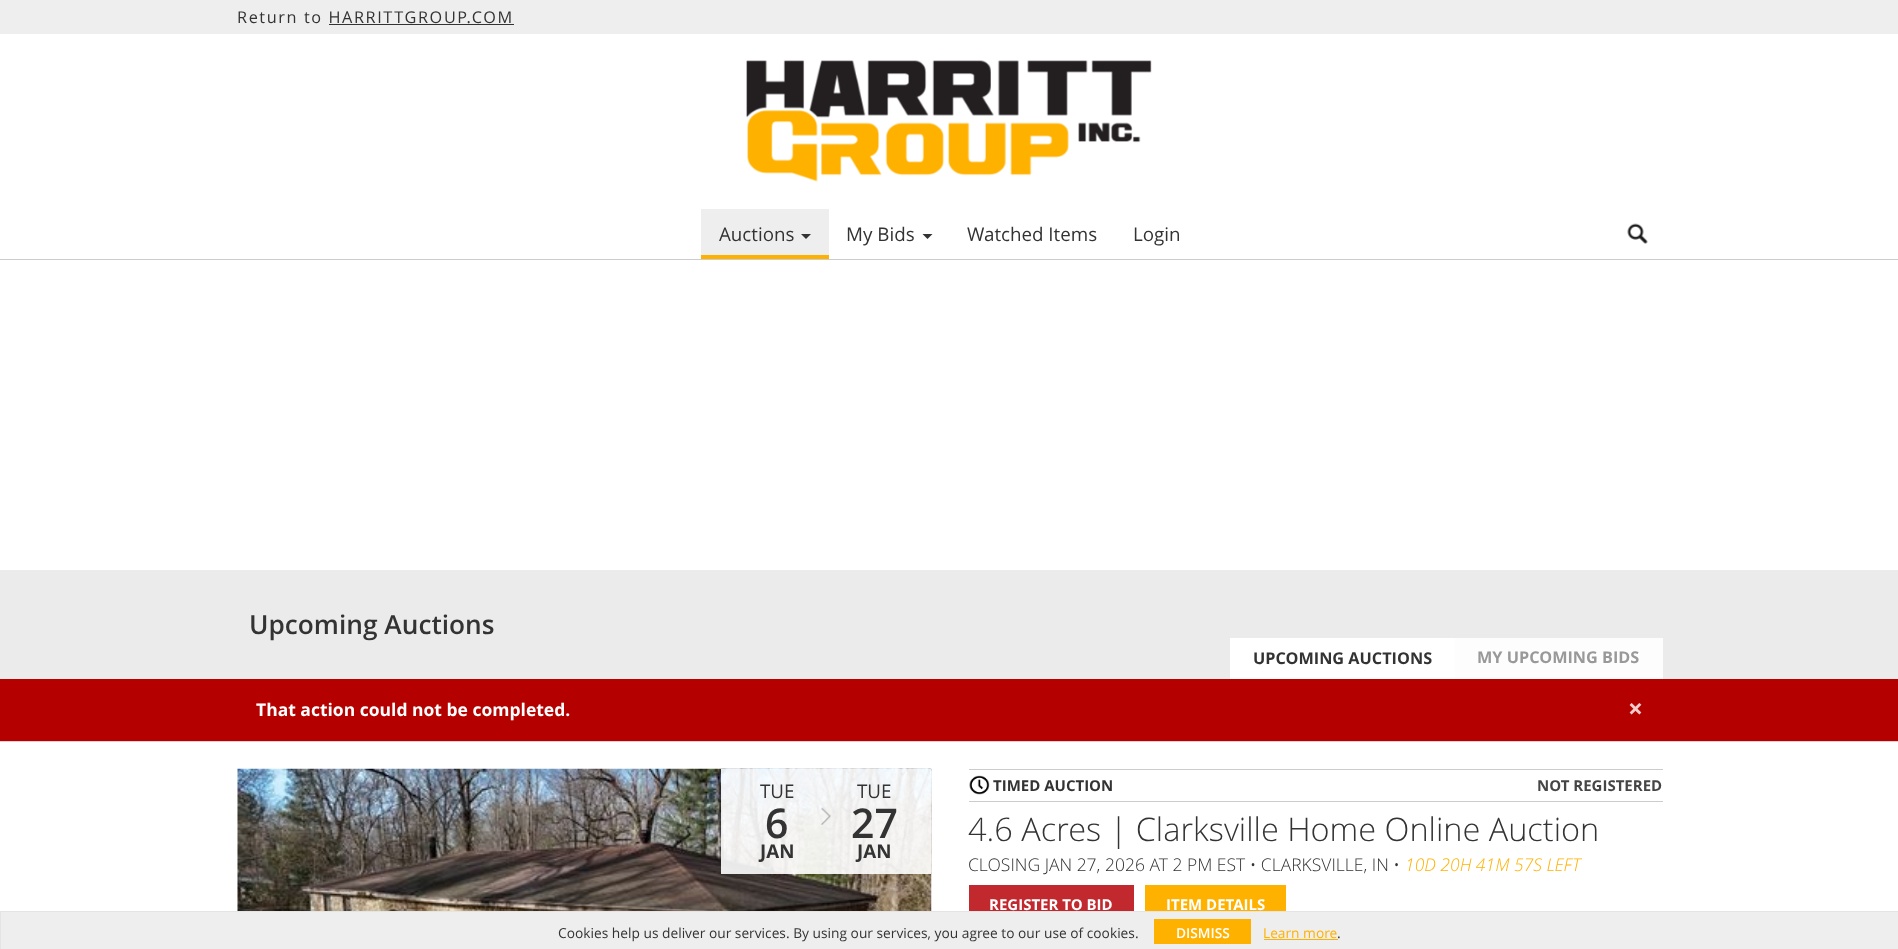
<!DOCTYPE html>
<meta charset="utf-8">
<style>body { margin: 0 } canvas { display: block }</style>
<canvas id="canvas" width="1898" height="949"></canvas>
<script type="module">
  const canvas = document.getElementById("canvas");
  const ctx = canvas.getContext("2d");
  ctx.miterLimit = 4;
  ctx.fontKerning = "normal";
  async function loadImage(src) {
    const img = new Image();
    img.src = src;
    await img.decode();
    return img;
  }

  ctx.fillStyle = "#ffffff";
  ctx.fillRect(0, 0, 1898, 949);
  ctx.fillStyle = "#eeeeee";
  ctx.fillRect(0, 0, 1898, 34);
  ctx.letterSpacing = "1.6px";
  ctx.font = "16.25px Open Sans";
  ctx.fillStyle = "#333333";
  ctx.fillText("Return to HARRITTGROUP.COM", 237, 23);
  ctx.fillRect(329, 24, 185, 1);
  ctx.drawImage(await loadImage("img1.png"), 746, 60, 406, 122);
  ctx.fillStyle = "#eeeeee";
  ctx.fillRect(701, 209, 128, 46);
  ctx.fillStyle = "#ffb100";
  ctx.fillRect(701, 255, 128, 4);
  ctx.letterSpacing = "0px";
  ctx.font = "18.75px Open Sans";
  ctx.fillStyle = "#333333";
  ctx.fillText("Auctions", 719, 241);
  ctx.beginPath();
  ctx.moveTo(801, 234);
  ctx.lineTo(811, 234);
  ctx.lineTo(806, 239);
  ctx.closePath();
  ctx.fill();
  ctx.fillText("My Bids", 846, 241);
  ctx.beginPath();
  ctx.moveTo(922.5, 234);
  ctx.lineTo(932.5, 234);
  ctx.lineTo(927.5, 239);
  ctx.closePath();
  ctx.fill();
  ctx.fillText("Watched Items", 967, 241);
  ctx.fillText("Login", 1133, 241);
  ctx.drawImage(await loadImage("img2.png"), 1627, 223, 21, 21);
  ctx.fillStyle = "#cccccc";
  ctx.fillRect(0, 259, 1898, 1);
  ctx.fillStyle = "#ebebeb";
  ctx.fillRect(0, 570, 1898, 109);
  ctx.font = "600 26.25px Open Sans";
  ctx.fillStyle = "#333333";
  ctx.fillText("Upcoming Auctions", 249, 634);
  ctx.fillStyle = "#ffffff";
  ctx.fillRect(1230, 638, 225, 41);
  ctx.font = "bold 16.25px Open Sans";
  ctx.fillStyle = "#333333";
  ctx.fillText("UPCOMING AUCTIONS", 1253, 664);
  ctx.fillStyle = "#fdfdfd";
  ctx.fillRect(1455, 638, 208, 41);
  ctx.fillStyle = "#999999";
  ctx.fillText("MY UPCOMING BIDS", 1477, 663);
  ctx.fillStyle = "#b50000";
  ctx.fillRect(0, 679, 1898, 62);
  ctx.fillStyle = "#ebccd1";
  ctx.fillRect(0, 741, 1898, 1);
  ctx.font = "bold 17.5px Open Sans";
  ctx.fillStyle = "#ffffff";
  ctx.fillText("That action could not be completed.", 256, 716);
  ctx.font = "bold 26.25px Open Sans";
  ctx.fillStyle = "#f0cccc";
  ctx.fillText("×", 1628, 718);
  ctx.drawImage(await loadImage("img3.png"), 237, 768, 695, 143);
  ctx.fillStyle = "rgba(255, 255, 255, 0.9)";
  ctx.fillRect(721, 769, 210, 105);
  ctx.font = "18.75px Open Sans";
  ctx.fillStyle = "#333333";
  ctx.fillText("TUE", 760, 798);
  ctx.font = "600 41px Open Sans";
  ctx.fillText("6", 765, 838);
  ctx.font = "bold 18.75px Open Sans";
  ctx.fillText("JAN", 760, 858);
  ctx.font = "18.75px Open Sans";
  ctx.fillText("TUE", 857, 798);
  ctx.drawImage(await loadImage("img4.png"), 821, 807, 10, 18);
  ctx.font = "600 41px Open Sans";
  ctx.fillText("27", 851, 838);
  ctx.font = "bold 18.75px Open Sans";
  ctx.fillText("JAN", 857, 858);
  ctx.drawImage(await loadImage("img5.png"), 969, 775, 21, 20);
  ctx.fillStyle = "#cccccc";
  ctx.fillRect(969, 769, 694, 1);
  ctx.font = "bold 15px Open Sans";
  ctx.fillStyle = "#333333";
  ctx.fillText("TIMED AUCTION", 993, 791);
  ctx.fillStyle = "#454545";
  ctx.fillText("NOT REGISTERED", 1537, 791);
  ctx.fillStyle = "#cccccc";
  ctx.fillRect(969, 801, 694, 1);
  ctx.font = "300 32.5px Open Sans";
  ctx.fillStyle = "#333333";
  ctx.fillText("4.6 Acres | Clarksville Home Online Auction", 968, 841);
  ctx.font = "300 17.5px Open Sans";
  ctx.fillText("CLOSING JAN 27, 2026 AT 2 PM EST • CLARKSVILLE, IN •", 968, 871);
  ctx.font = "italic 300 17.5px Open Sans";
  ctx.fillStyle = "#ffb100";
  ctx.fillText("10D 20H 41M 57S LEFT", 1405, 871);
  ctx.fillStyle = "#c1292e";
  ctx.fillRect(969, 885, 165, 26);
  ctx.font = "bold 15px Open Sans";
  ctx.fillStyle = "#ffffff";
  ctx.fillText("REGISTER TO BID", 989, 910);
  ctx.fillStyle = "#ffb100";
  ctx.fillRect(1145, 885, 141, 26);
  ctx.fillStyle = "#ffffff";
  ctx.fillText("ITEM DETAILS", 1166, 910);
  ctx.fillStyle = "#eeeeee";
  ctx.fillRect(1, 912, 1897, 37);
  ctx.fillStyle = "#e4e4e4";
  ctx.fillRect(0, 911, 1898, 1);
  ctx.fillRect(0, 911, 1, 38);
  ctx.font = "13.75px Open Sans";
  ctx.fillStyle = "#333333";
  ctx.fillText("Cookies help us deliver our services. By using our services, you agree to our use of cookies.", 558, 938);
  ctx.fillStyle = "#ffb100";
  ctx.fillRect(1154, 919, 97, 25);
  ctx.font = "600 13.75px Open Sans";
  ctx.fillStyle = "#ffffff";
  ctx.fillText("DISMISS", 1176, 938);
  ctx.font = "13.75px Open Sans";
  ctx.fillStyle = "#ffb100";
  ctx.fillText("Learn more", 1263, 938);
  ctx.fillRect(1264, 939, 74, 1);
  ctx.fillStyle = "#333333";
  ctx.fillText(".", 1337, 938);
</script>
